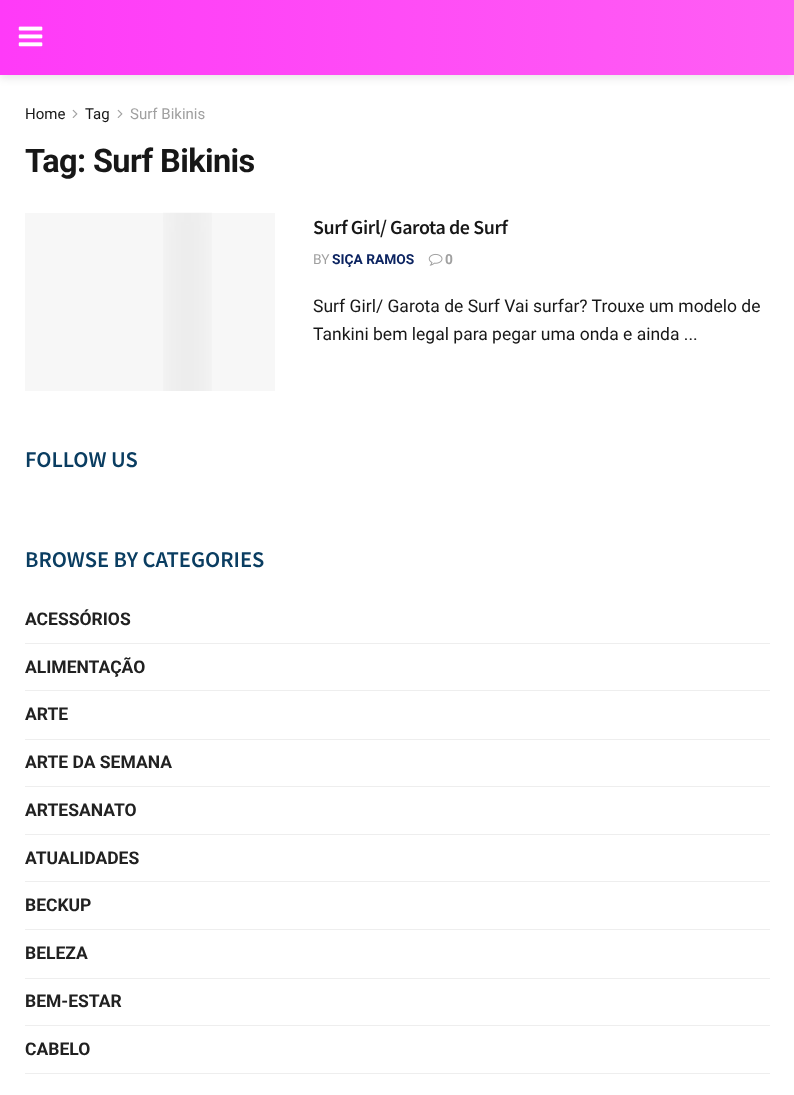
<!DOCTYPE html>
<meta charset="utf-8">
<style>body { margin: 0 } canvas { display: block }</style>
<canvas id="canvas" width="794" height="1095"></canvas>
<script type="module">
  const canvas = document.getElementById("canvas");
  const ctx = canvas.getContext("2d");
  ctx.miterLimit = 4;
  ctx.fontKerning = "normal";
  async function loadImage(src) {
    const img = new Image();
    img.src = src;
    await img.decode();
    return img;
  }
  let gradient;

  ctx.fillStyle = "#ffffff";
  ctx.fillRect(0, 0, 794, 1095);
  ctx.fillStyle = "rgba(0, 0, 0, 0.1)";
  ctx.filter = "blur(4px)";
  ctx.beginPath();
  ctx.rect(0, 3, 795, 75);
  ctx.fill();
  ctx.filter = "none";
  gradient = ctx.createLinearGradient(0, 38, 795, 37);
  gradient.addColorStop(0, "#ff3af8");
  gradient.addColorStop(1, "#ff5ef4");
  ctx.fillStyle = gradient;
  ctx.fillRect(0, 0, 794, 75);
  ctx.drawImage(await loadImage("img1.png"), 18, 26, 25, 21);
  ctx.font = "15px Roboto";
  ctx.fillStyle = "#171717";
  ctx.fillText("Home", 25, 119);
  ctx.drawImage(await loadImage("img2.png"), 72, 109, 6, 9);
  ctx.fillText("Tag", 85, 119);
  ctx.drawImage(await loadImage("img2.png"), 117, 109, 6, 9);
  ctx.fillStyle = "#a0a0a0";
  ctx.fillText("Surf Bikinis", 130, 119);
  ctx.letterSpacing = "-0.6px";
  ctx.font = "bold 32.5px Roboto";
  ctx.fillStyle = "#171717";
  ctx.fillText("Tag: Surf Bikinis", 25, 172);
  ctx.fillStyle = "#f7f7f7";
  ctx.fillRect(25, 213, 250, 178);
  ctx.drawImage(await loadImage("img3.png"), 163, 212, 49, 179);
  ctx.letterSpacing = "-0.4px";
  ctx.font = "600 20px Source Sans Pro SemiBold";
  ctx.fillStyle = "#171717";
  ctx.fillText("Surf Girl/ Garota de Surf", 313, 234);
  ctx.letterSpacing = "0px";
  ctx.font = "13.75px Roboto";
  ctx.fillStyle = "#a0a0a0";
  ctx.fillText("BY", 313, 264);
  ctx.font = "bold 13.75px Roboto";
  ctx.fillStyle = "#0c2461";
  ctx.fillText("SIÇA RAMOS", 332, 264);
  ctx.drawImage(await loadImage("img4.png"), 428, 253, 15, 13);
  ctx.fillStyle = "#a0a0a0";
  ctx.fillText("0", 445, 264);
  ctx.font = "17.5px Roboto";
  ctx.fillStyle = "#171717";
  ctx.fillText("Surf Girl/ Garota de Surf Vai surfar? Trouxe um modelo de", 313, 312);
  ctx.fillText("Tankini bem legal para pegar uma onda e ainda ...", 313, 340);
  ctx.font = "600 22.5px Source Sans Pro SemiBold";
  ctx.fillStyle = "#0a3d61";
  ctx.fillText("FOLLOW US", 25, 467);
  ctx.fillText("BROWSE BY CATEGORIES", 25, 567);
  ctx.font = "bold 17.5px Roboto";
  ctx.fillStyle = "#212121";
  ctx.fillText("ACESSÓRIOS", 25, 625);
  ctx.fillStyle = "#eeeeee";
  ctx.fillRect(25, 643, 745, 1);
  ctx.fillStyle = "#212121";
  ctx.fillText("ALIMENTAÇÃO", 25, 673);
  ctx.fillStyle = "#eeeeee";
  ctx.fillRect(25, 690, 745, 1);
  ctx.fillStyle = "#212121";
  ctx.fillText("ARTE", 25, 720);
  ctx.fillStyle = "#eeeeee";
  ctx.fillRect(25, 739, 745, 1);
  ctx.fillStyle = "#212121";
  ctx.fillText("ARTE DA SEMANA", 25, 768);
  ctx.fillStyle = "#eeeeee";
  ctx.fillRect(25, 786, 745, 1);
  ctx.fillStyle = "#212121";
  ctx.fillText("ARTESANATO", 25, 816);
  ctx.fillStyle = "#eeeeee";
  ctx.fillRect(25, 834, 745, 1);
  ctx.fillStyle = "#212121";
  ctx.fillText("ATUALIDADES", 25, 864);
  ctx.fillStyle = "#eeeeee";
  ctx.fillRect(25, 881, 745, 1);
  ctx.fillStyle = "#212121";
  ctx.fillText("BECKUP", 25, 911);
  ctx.fillStyle = "#eeeeee";
  ctx.fillRect(25, 929, 745, 1);
  ctx.fillStyle = "#212121";
  ctx.fillText("BELEZA", 25, 959);
  ctx.fillStyle = "#eeeeee";
  ctx.fillRect(25, 978, 745, 1);
  ctx.fillStyle = "#212121";
  ctx.fillText("BEM-ESTAR", 25, 1007);
  ctx.fillStyle = "#eeeeee";
  ctx.fillRect(25, 1025, 745, 1);
  ctx.fillStyle = "#212121";
  ctx.fillText("CABELO", 25, 1055);
  ctx.fillStyle = "#eeeeee";
  ctx.fillRect(25, 1073, 745, 1);
</script>
